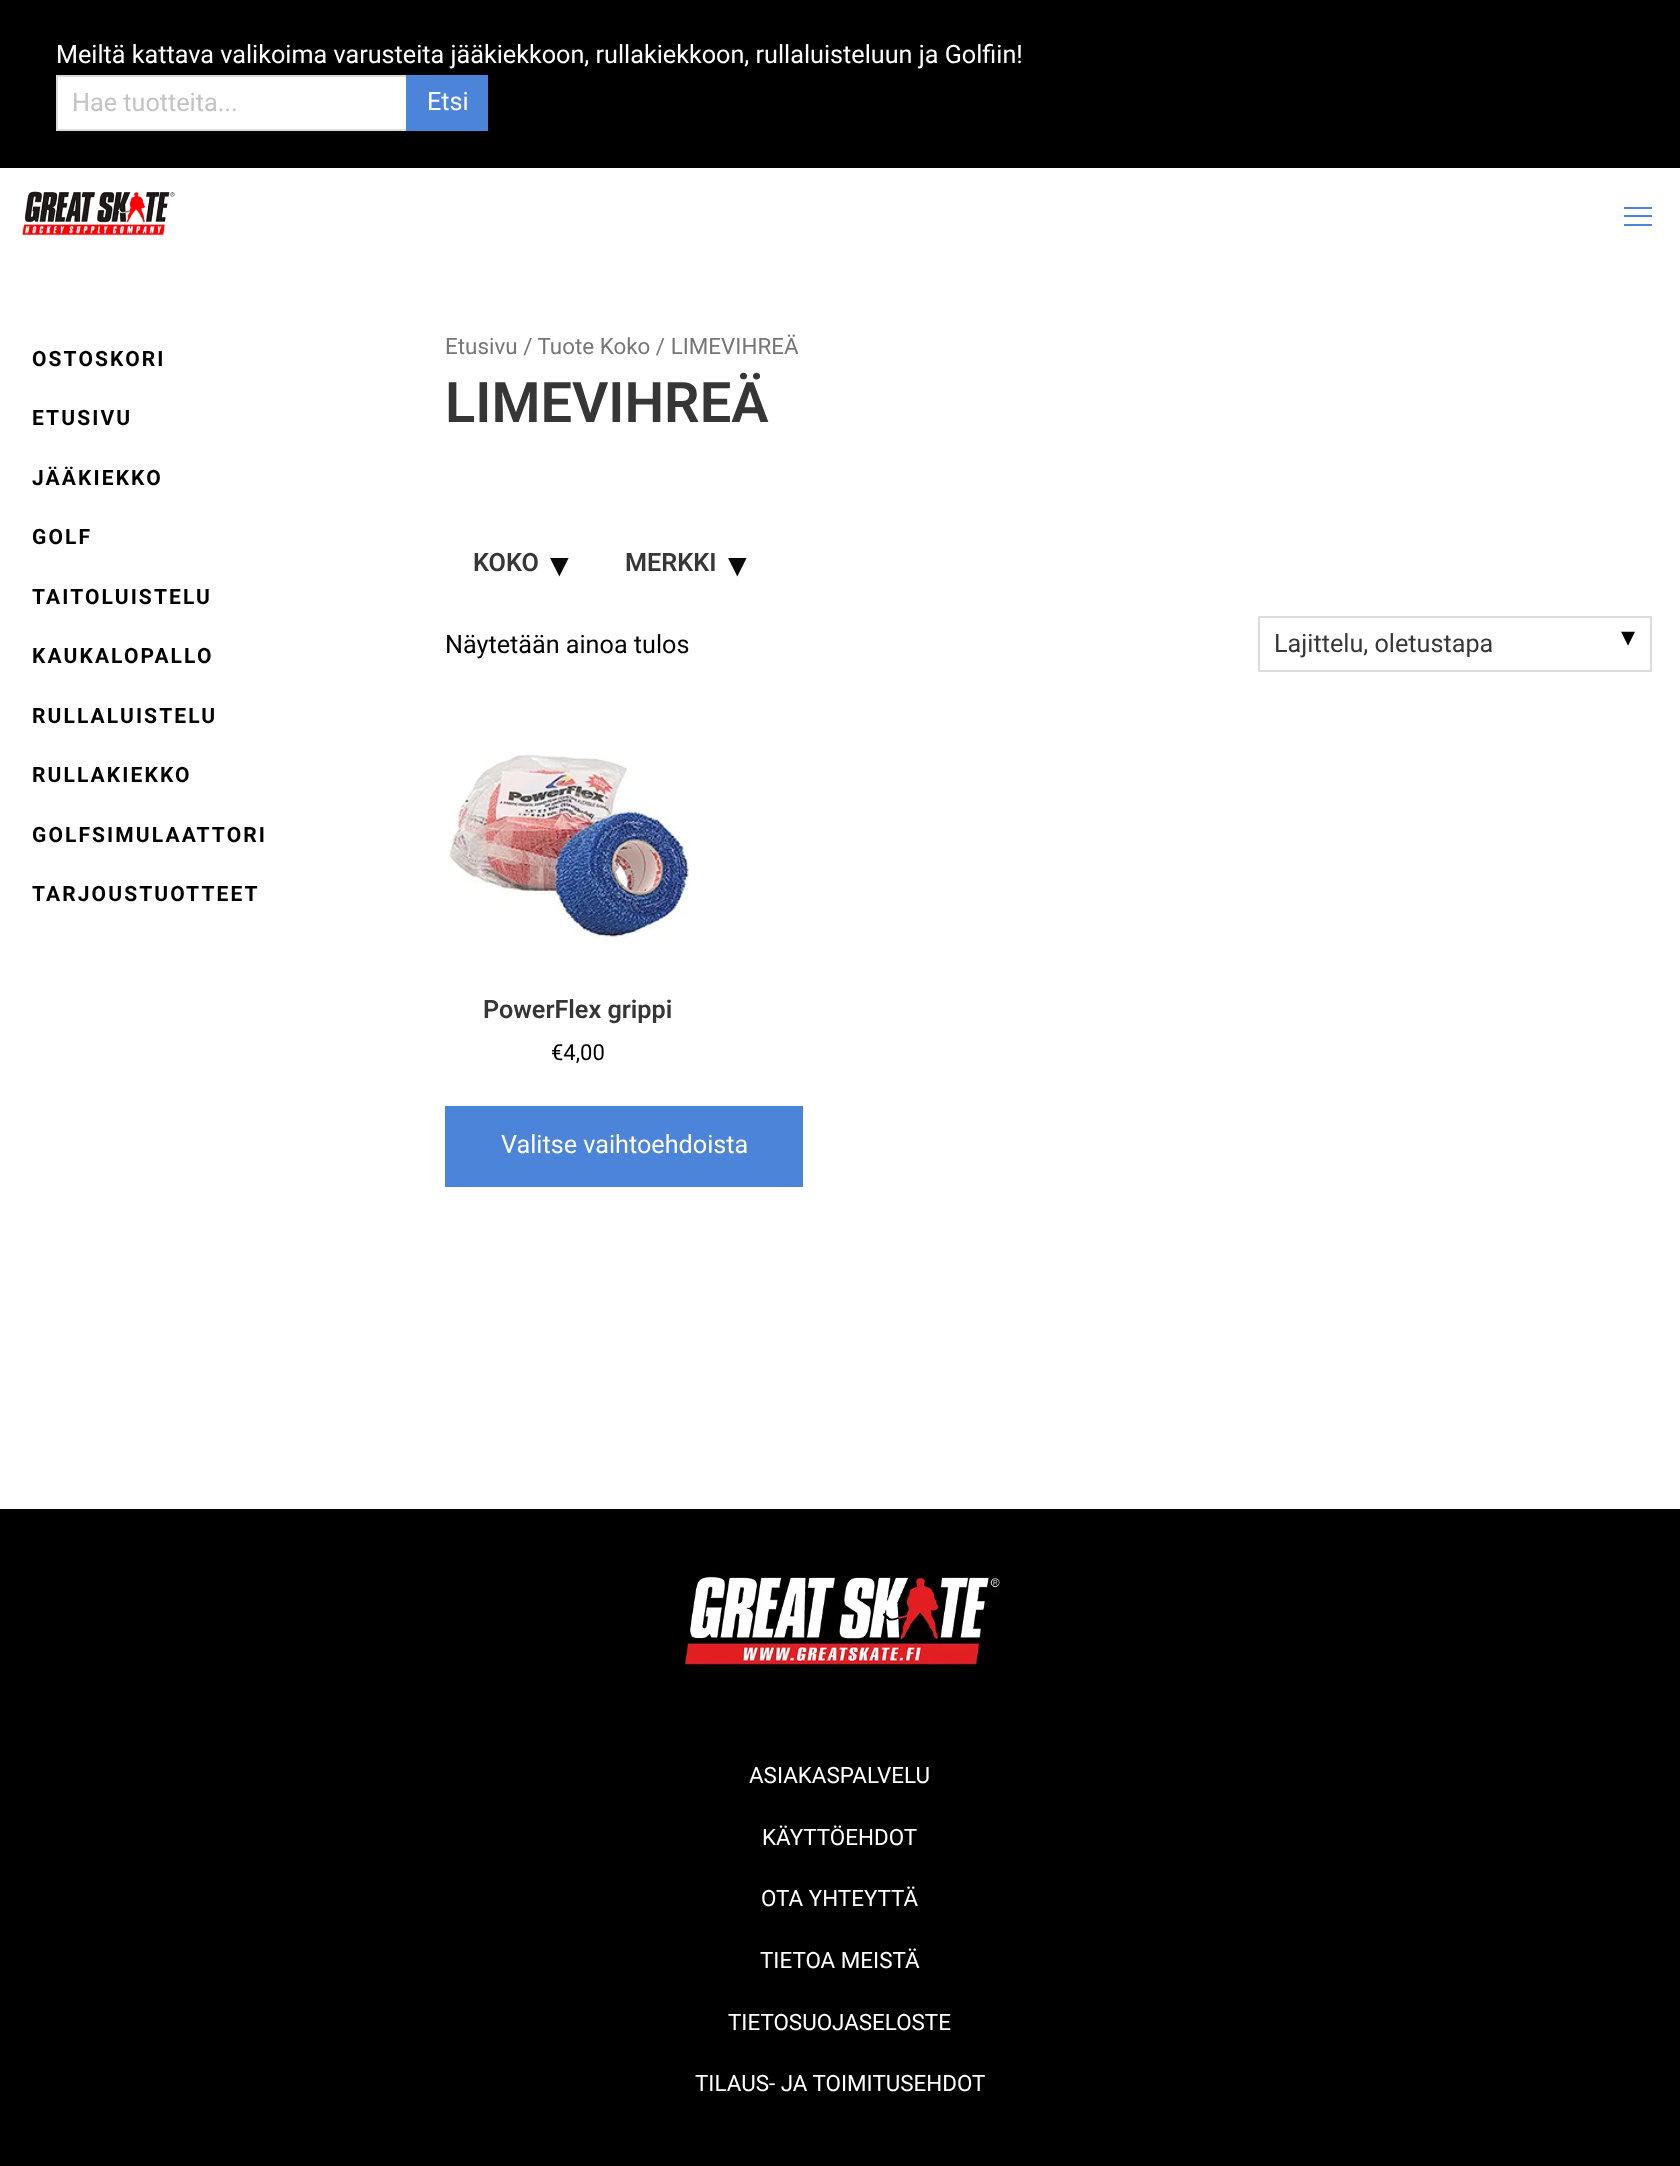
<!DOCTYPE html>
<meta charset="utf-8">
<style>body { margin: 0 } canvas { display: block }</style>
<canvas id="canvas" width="1680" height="2166"></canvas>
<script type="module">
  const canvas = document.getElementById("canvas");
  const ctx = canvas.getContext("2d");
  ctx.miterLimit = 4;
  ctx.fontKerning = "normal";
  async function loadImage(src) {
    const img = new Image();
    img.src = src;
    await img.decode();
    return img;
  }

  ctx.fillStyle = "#ffffff";
  ctx.fillRect(0, 0, 1680, 2166);
  ctx.fillStyle = "#000000";
  ctx.fillRect(0, 0, 1680, 168);
  ctx.font = "25.2px Roboto";
  ctx.fillStyle = "#ffffff";
  ctx.fillText("Meiltä kattava valikoima varusteita jääkiekkoon, rullakiekkoon, rullaluisteluun ja Golfiin!", 56, 63);
  ctx.beginPath();
  ctx.rect(57, 76, 350, 54);
  ctx.fill();
  ctx.strokeStyle = "#dbdbdb";
  ctx.lineWidth = 2;
  ctx.stroke();
  ctx.fillStyle = "#c3c3c3";
  ctx.fillText("Hae tuotteita...", 72, 111);
  ctx.fillStyle = "#4c84d9";
  ctx.fillRect(406, 75, 82, 56);
  ctx.fillStyle = "#ffffff";
  ctx.fillText("Etsi", 427, 110);
  ctx.drawImage(await loadImage("img1.png"), 22, 191, 153, 45);
  ctx.fillStyle = "#4c84d9";
  ctx.fillRect(1624, 207, 28, 2);
  ctx.fillRect(1624, 215, 28, 2);
  ctx.fillRect(1624, 224, 28, 2);
  ctx.letterSpacing = "2.1px";
  ctx.font = "bold 21px Roboto";
  ctx.fillStyle = "#000000";
  ctx.fillText("OSTOSKORI", 32, 366);
  ctx.fillText("ETUSIVU", 32, 425);
  ctx.fillText("JÄÄKIEKKO", 32, 485);
  ctx.fillText("GOLF", 32, 544);
  ctx.fillText("TAITOLUISTELU", 32, 604);
  ctx.fillText("KAUKALOPALLO", 32, 663);
  ctx.fillText("RULLALUISTELU", 32, 723);
  ctx.fillText("RULLAKIEKKO", 32, 782);
  ctx.fillText("GOLFSIMULAATTORI", 32, 842);
  ctx.fillText("TARJOUSTUOTTEET", 32, 901);
  ctx.letterSpacing = "0px";
  ctx.font = "22.4px Roboto";
  ctx.fillStyle = "#767676";
  ctx.fillText("Etusivu / Tuote Koko / LIMEVIHREÄ", 445, 354);
  ctx.font = "600 56px Roboto";
  ctx.fillStyle = "#363636";
  ctx.fillText("LIMEVIHREÄ", 445, 422);
  ctx.font = "600 25.2px Roboto";
  ctx.fillText("KOKO", 473, 571);
  ctx.font = "bold 34px DejaVu Sans";
  ctx.fillStyle = "#0a0a0a";
  ctx.save();
  ctx.translate(550, 558);
  ctx.rotate(90 * Math.PI / 180);
  ctx.fillText("▸", 0, 0);
  ctx.restore();
  ctx.font = "600 25.2px Roboto";
  ctx.fillStyle = "#363636";
  ctx.fillText("MERKKI", 625, 571);
  ctx.font = "bold 34px DejaVu Sans";
  ctx.fillStyle = "#0a0a0a";
  ctx.save();
  ctx.translate(728, 558);
  ctx.rotate(90 * Math.PI / 180);
  ctx.fillText("▸", 0, 0);
  ctx.restore();
  ctx.font = "25.2px Roboto";
  ctx.fillStyle = "#000000";
  ctx.fillText("Näytetään ainoa tulos", 445, 653);
  ctx.strokeRect(1259, 617, 392, 54);
  ctx.fillStyle = "#363636";
  ctx.fillText("Lajittelu, oletustapa", 1274, 652);
  ctx.font = "28px DejaVu Sans";
  ctx.fillStyle = "#000000";
  ctx.fillText("▾", 1621, 646);
  ctx.drawImage(await loadImage("img2.png"), 449, 754, 240, 185);
  ctx.font = "600 25.2px Roboto";
  ctx.fillStyle = "#363636";
  ctx.fillText("PowerFlex grippi", 483, 1018);
  ctx.font = "22px Roboto";
  ctx.fillStyle = "#000000";
  ctx.fillText("€4,00", 551, 1060);
  ctx.fillStyle = "#4c84d9";
  ctx.fillRect(445, 1106, 358, 81);
  ctx.font = "25.2px Roboto";
  ctx.fillStyle = "#ffffff";
  ctx.fillText("Valitse vaihtoehdoista", 501, 1153);
  ctx.fillStyle = "#000000";
  ctx.fillRect(0, 1509, 1680, 657);
  ctx.drawImage(await loadImage("img3.png"), 683, 1575, 317, 90);
  ctx.font = "22.4px Roboto";
  ctx.fillStyle = "#ffffff";
  ctx.fillText("ASIAKASPALVELU", 749, 1783);
  ctx.fillText("KÄYTTÖEHDOT", 762, 1845);
  ctx.fillText("OTA YHTEYTTÄ", 761, 1906);
  ctx.fillText("TIETOA MEISTÄ", 760, 1968);
  ctx.fillText("TIETOSUOJASELOSTE", 728, 2030);
  ctx.fillText("TILAUS- JA TOIMITUSEHDOT", 695, 2091);
</script>
